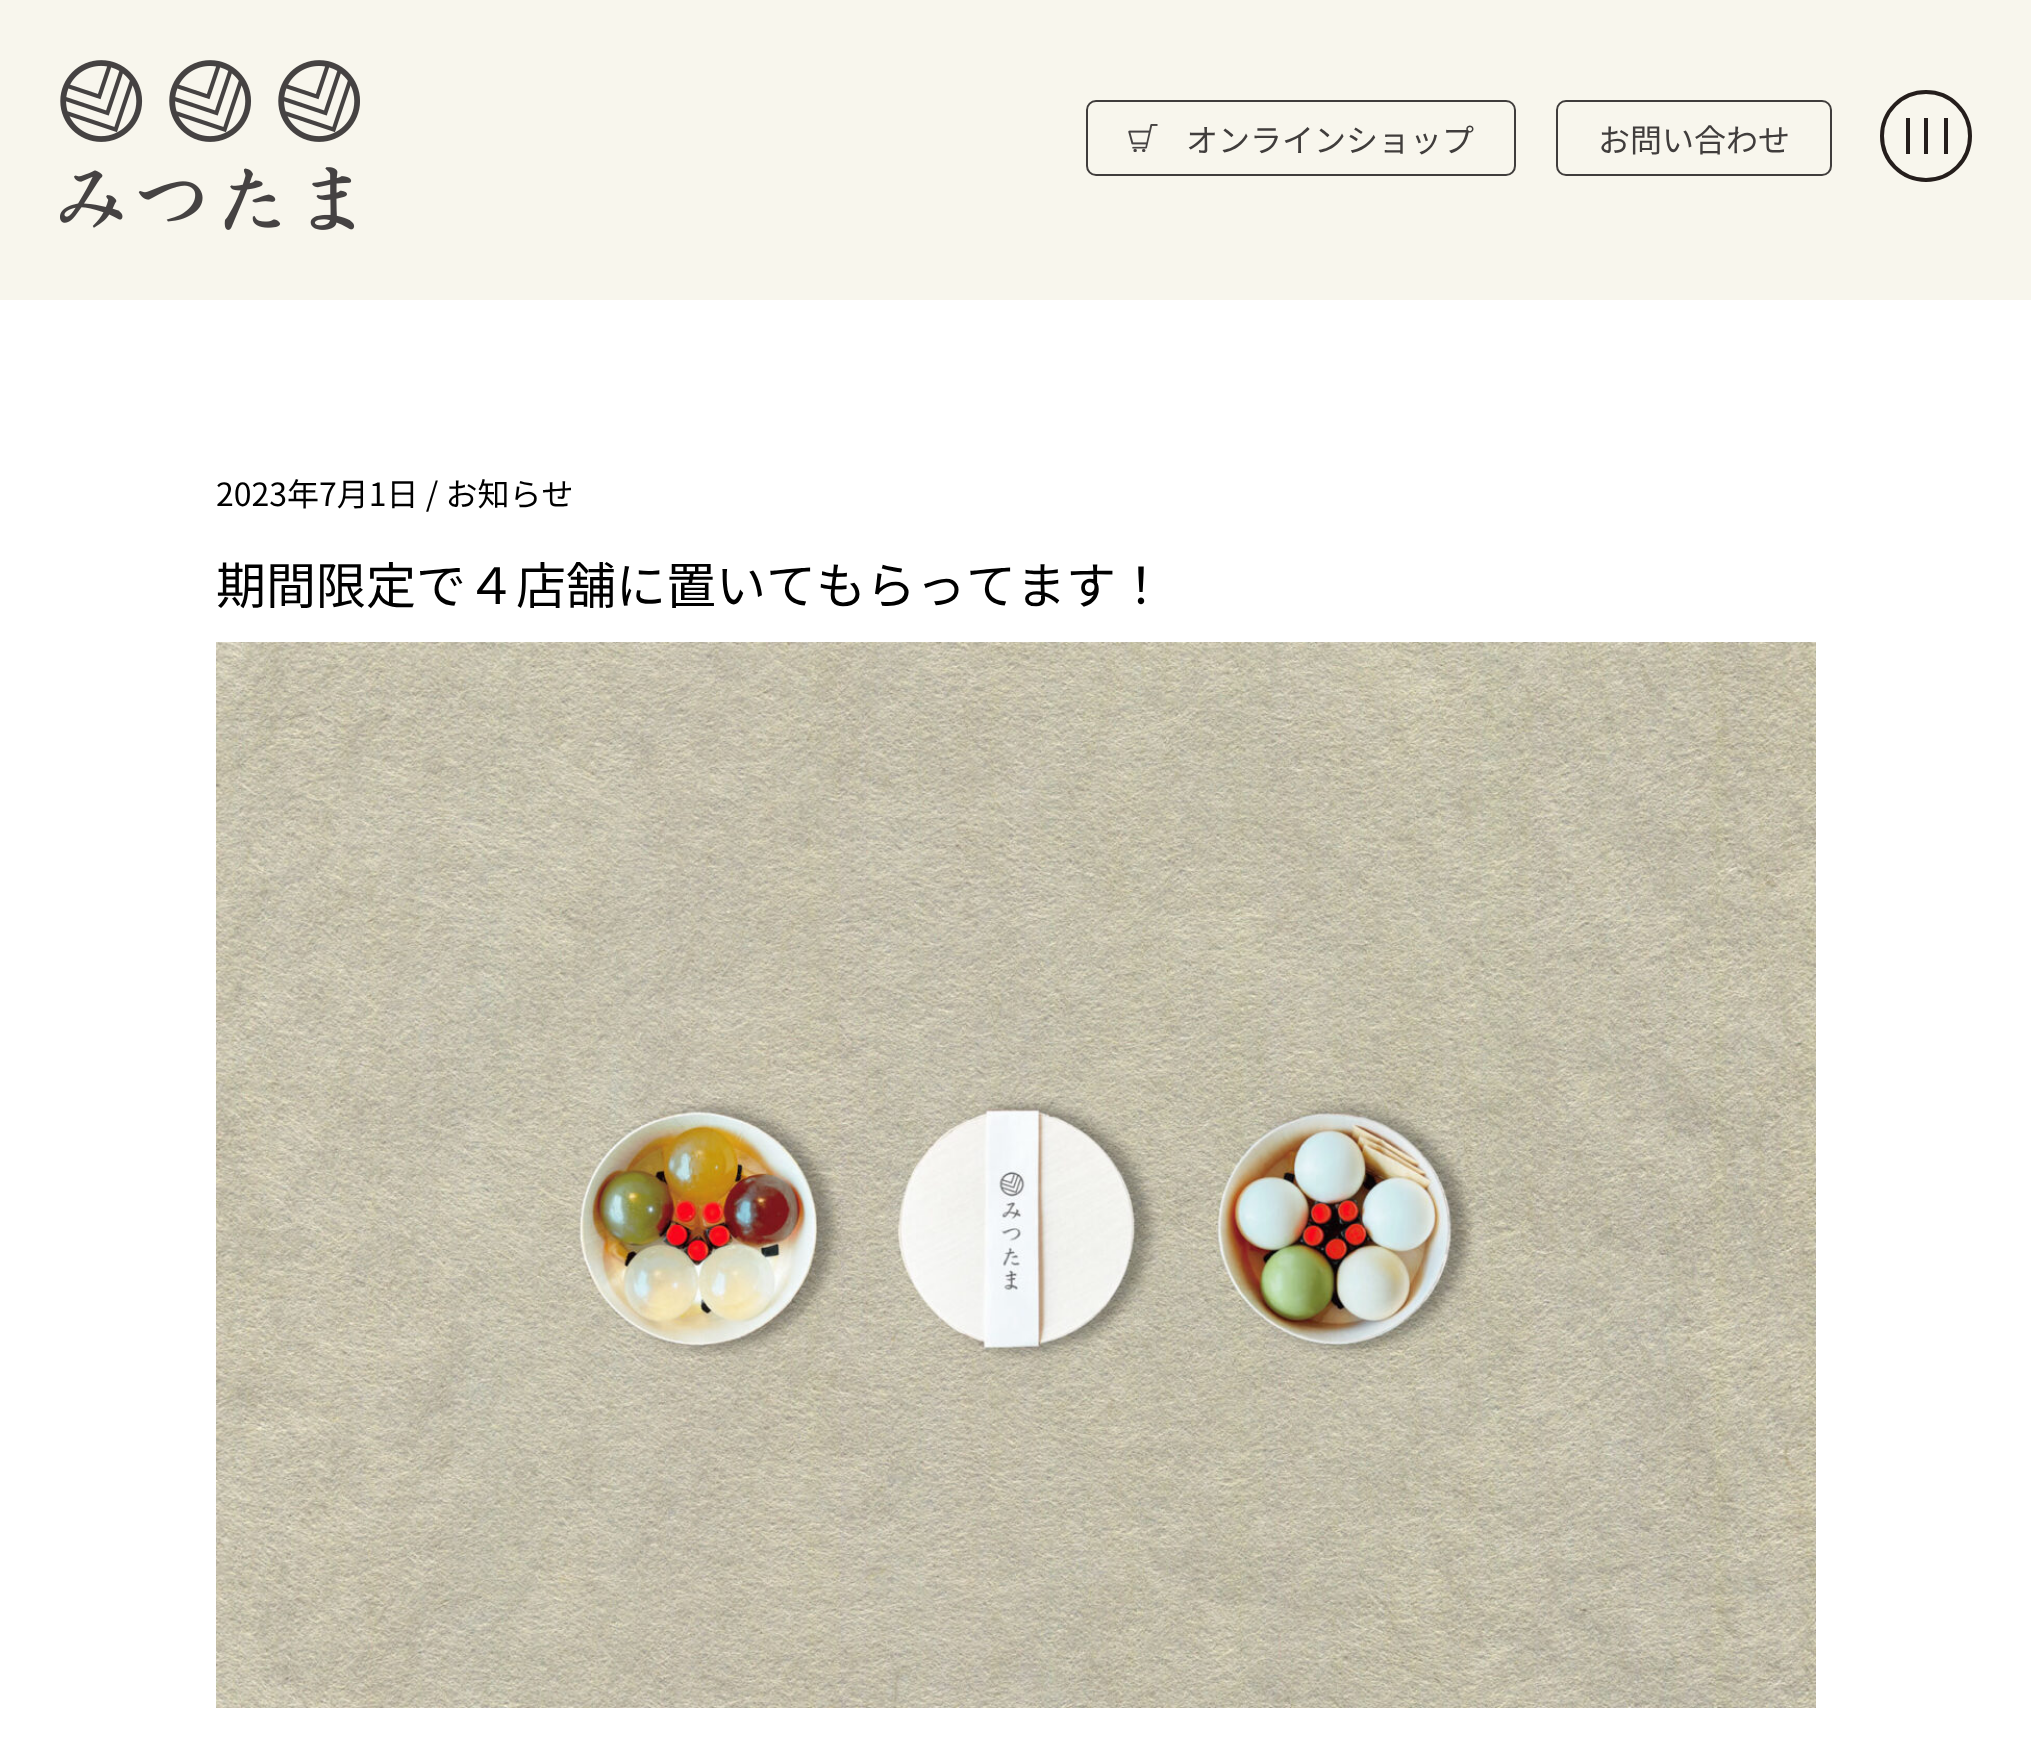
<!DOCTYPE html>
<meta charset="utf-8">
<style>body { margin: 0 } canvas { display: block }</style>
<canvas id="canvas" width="2031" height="1758"></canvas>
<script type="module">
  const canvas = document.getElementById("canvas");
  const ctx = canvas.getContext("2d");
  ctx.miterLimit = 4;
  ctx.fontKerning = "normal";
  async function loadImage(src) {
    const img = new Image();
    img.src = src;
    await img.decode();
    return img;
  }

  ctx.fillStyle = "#ffffff";
  ctx.fillRect(0, 0, 2031, 1758);
  ctx.fillStyle = "#f8f6ed";
  ctx.fillRect(0, 0, 2031, 300);
  ctx.drawImage(await loadImage("img1.png"), 60, 60, 300, 170);
  ctx.beginPath();
  ctx.roundRect(1087, 101, 428, 74, 9);
  ctx.strokeStyle = "#403d3c";
  ctx.lineWidth = 2;
  ctx.stroke();
  ctx.drawImage(await loadImage("img2.png"), 1128, 124, 30, 28);
  ctx.font = "32px Noto Sans JP";
  ctx.fillStyle = "#403d3c";
  ctx.fillText("オンラインショップ", 1186, 152);
  ctx.beginPath();
  ctx.roundRect(1557, 101, 274, 74, 9);
  ctx.stroke();
  ctx.fillText("お問い合わせ", 1598, 152);
  ctx.beginPath();
  ctx.moveTo(1970, 136);
  ctx.bezierCurveTo(1970, 160.5, 1950.5, 180, 1926, 180);
  ctx.bezierCurveTo(1901.5, 180, 1882, 160.5, 1882, 136);
  ctx.bezierCurveTo(1882, 111.5, 1901.5, 92, 1926, 92);
  ctx.bezierCurveTo(1950.5, 92, 1970, 111.5, 1970, 136);
  ctx.closePath();
  ctx.strokeStyle = "#251e1c";
  ctx.lineWidth = 4;
  ctx.stroke();
  ctx.fillStyle = "#251e1c";
  ctx.fillRect(1906, 118, 4, 36);
  ctx.fillRect(1924, 118, 4, 36);
  ctx.fillRect(1944, 118, 4, 36);
  ctx.fillStyle = "#000000";
  ctx.fillText("2023年7月1日 / お知らせ", 216, 506);
  ctx.font = "50px Noto Sans JP";
  ctx.fillText("期間限定で４店舗に置いてもらってます！", 216, 604);
  ctx.drawImage(await loadImage("img3.png"), 216, 642, 1600, 1066);
</script>
